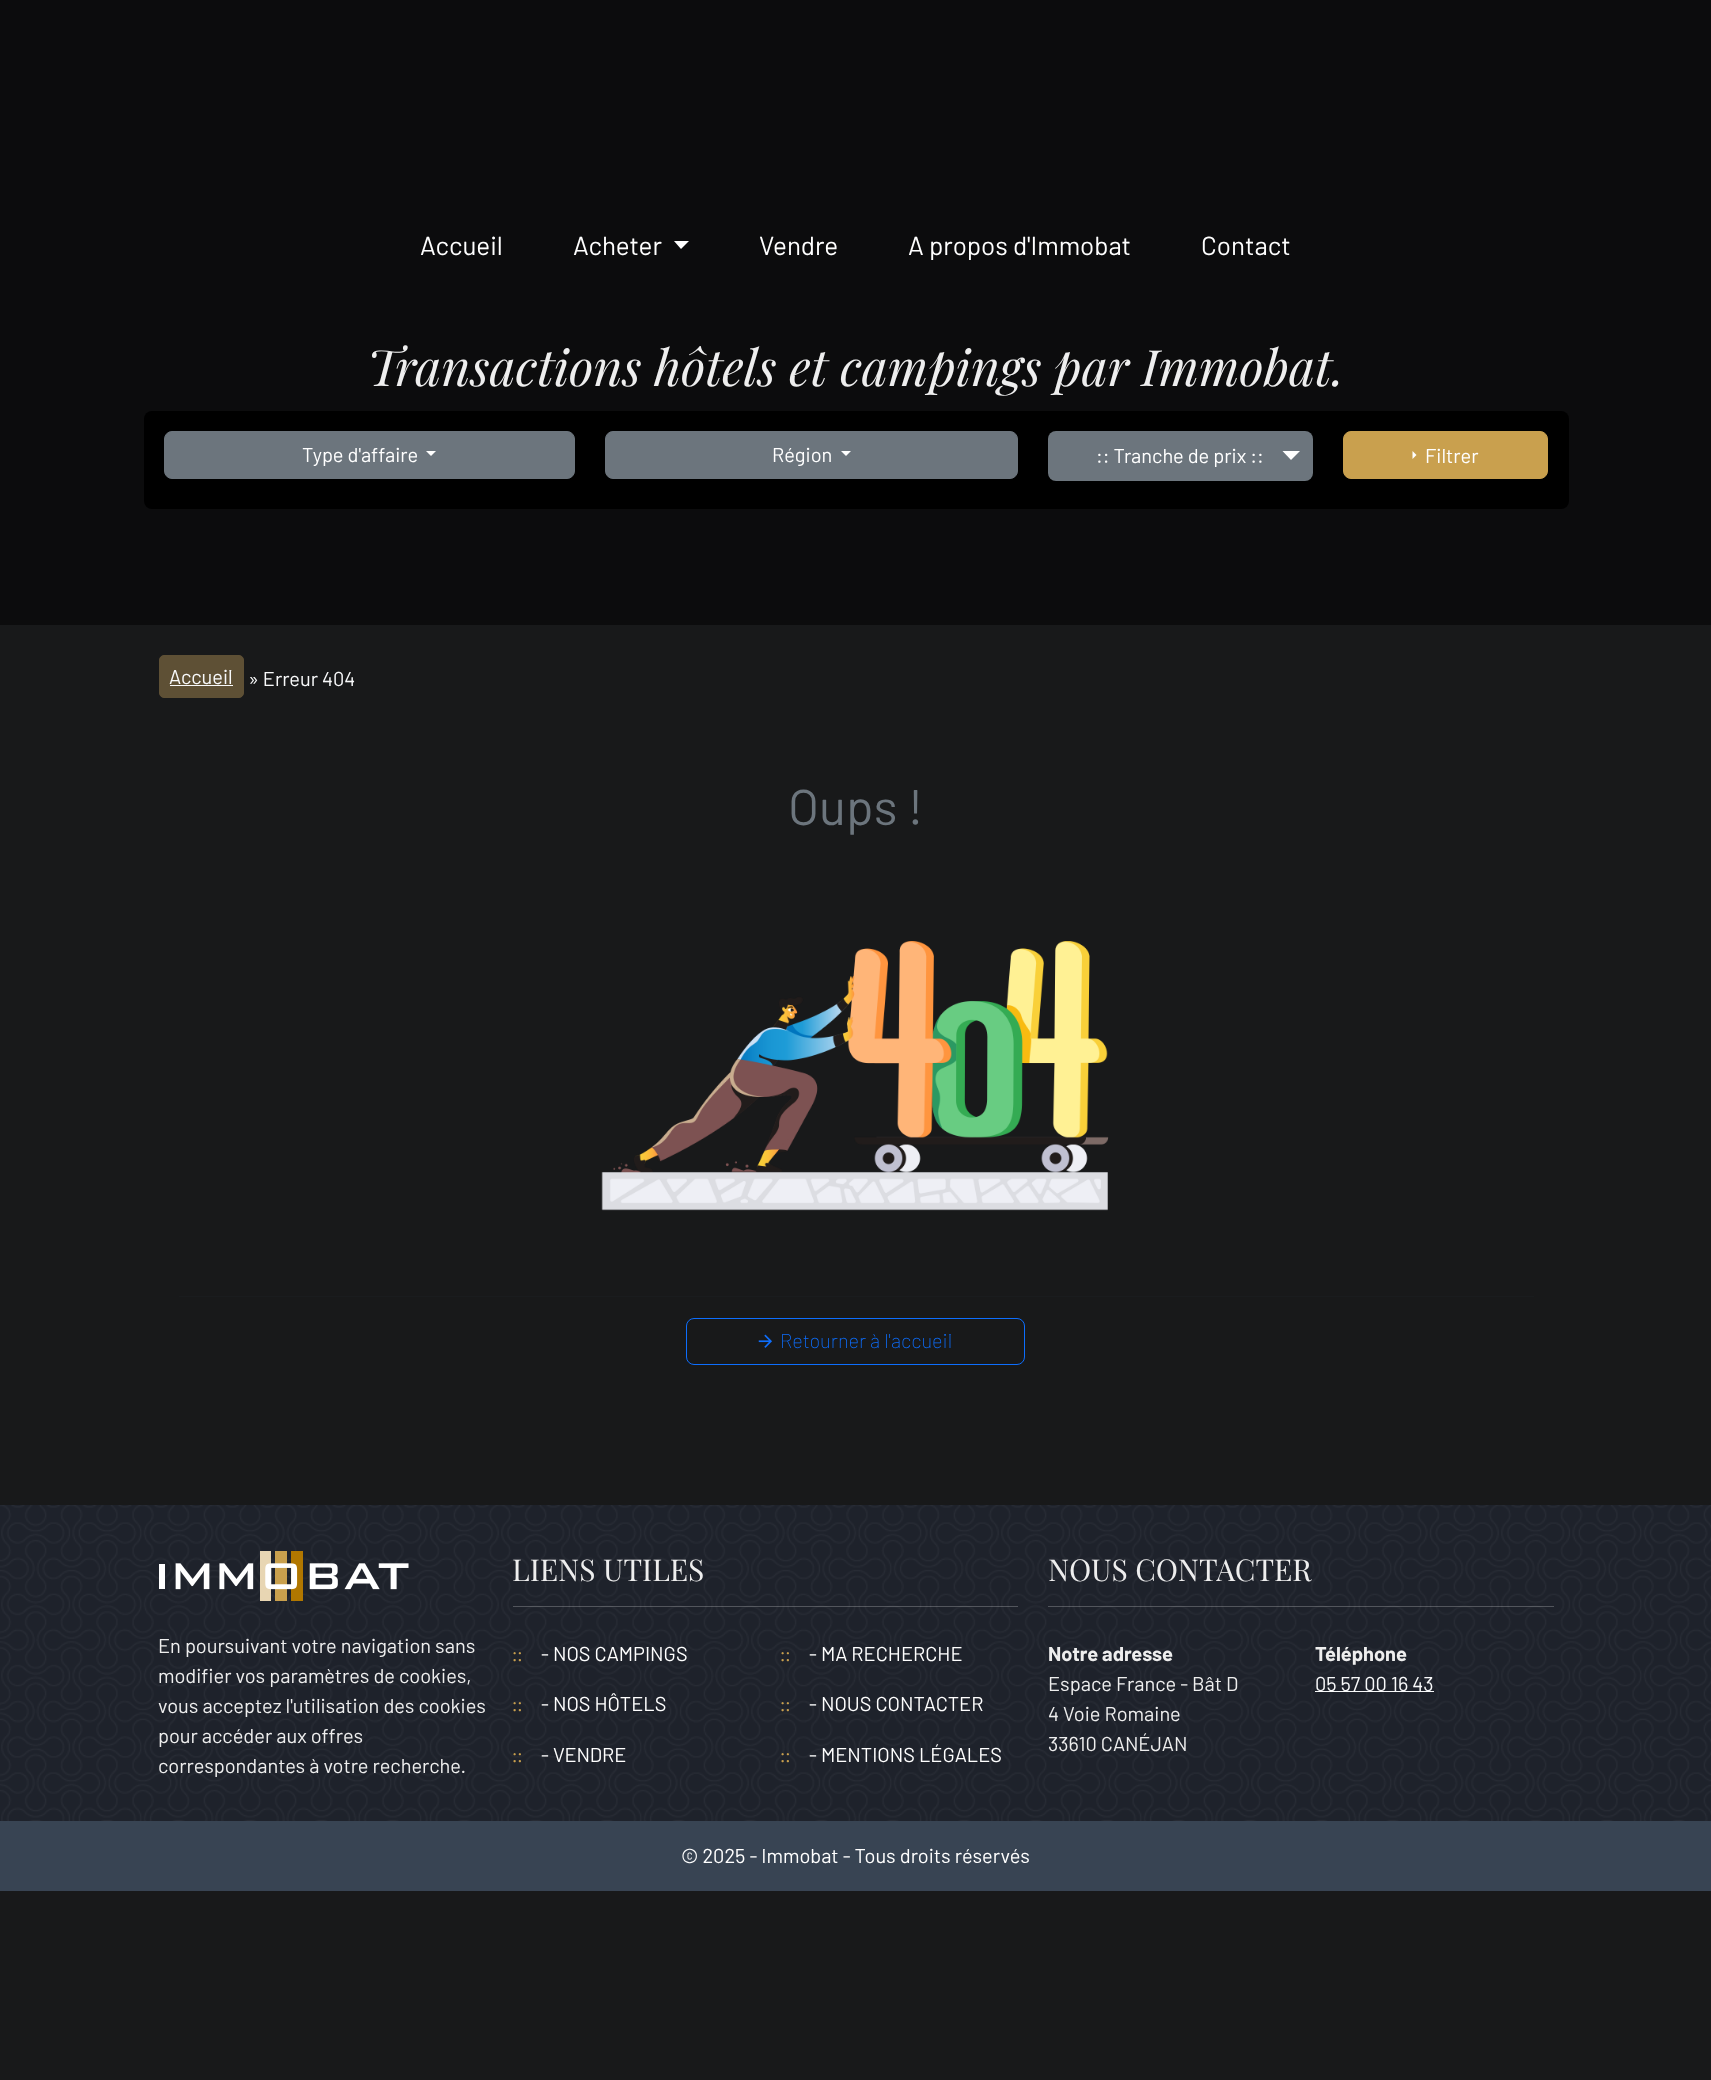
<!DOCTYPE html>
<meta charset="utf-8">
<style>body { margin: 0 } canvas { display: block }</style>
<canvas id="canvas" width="1711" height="2080"></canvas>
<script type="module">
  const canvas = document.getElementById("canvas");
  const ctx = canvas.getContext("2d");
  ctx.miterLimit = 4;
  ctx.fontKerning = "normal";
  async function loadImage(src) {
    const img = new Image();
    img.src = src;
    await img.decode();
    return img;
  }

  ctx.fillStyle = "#18191a";
  ctx.fillRect(0, 0, 1711, 2080);
  ctx.fillStyle = "#0c0c0d";
  ctx.fillRect(0, 0, 1711, 625);
  ctx.font = "26px Barlow";
  ctx.fillStyle = "#ffffff";
  ctx.fillText("Accueil", 420, 255);
  ctx.fillText("Acheter", 573, 255);
  ctx.beginPath();
  ctx.moveTo(674, 241);
  ctx.lineTo(689, 241);
  ctx.lineTo(681, 249);
  ctx.closePath();
  ctx.fill();
  ctx.fillText("Vendre", 759, 255);
  ctx.fillText("A propos d'Immobat", 908, 255);
  ctx.fillText("Contact", 1201, 255);
  ctx.font = "italic 50px Playfair Display";
  ctx.fillStyle = "#eeeeee";
  ctx.fillText("Transactions hôtels et campings par Immobat.", 367, 386);
  ctx.fillStyle = "#000000";
  ctx.beginPath();
  ctx.roundRect(144, 411, 1425, 98, 8);
  ctx.fill();
  ctx.fillStyle = "#6c757d";
  ctx.beginPath();
  ctx.roundRect(164.5, 431.5, 410, 47, 7.5);
  ctx.fill();
  ctx.strokeStyle = "#6c757d";
  ctx.stroke();
  ctx.font = "20px Barlow";
  ctx.fillStyle = "#ffffff";
  ctx.fillText("Type d'affaire", 302, 462);
  ctx.beginPath();
  ctx.moveTo(426, 451);
  ctx.lineTo(436, 451);
  ctx.lineTo(431, 456);
  ctx.closePath();
  ctx.fill();
  ctx.fillStyle = "#6c757d";
  ctx.beginPath();
  ctx.roundRect(605.5, 431.5, 412, 47, 7.5);
  ctx.fill();
  ctx.stroke();
  ctx.fillStyle = "#ffffff";
  ctx.fillText("Région", 772, 462);
  ctx.beginPath();
  ctx.moveTo(841, 451);
  ctx.lineTo(851, 451);
  ctx.lineTo(846, 456);
  ctx.closePath();
  ctx.fill();
  ctx.fillStyle = "#6c757d";
  ctx.beginPath();
  ctx.roundRect(1048, 431, 265, 50, 8);
  ctx.fill();
  ctx.fillStyle = "#ffffff";
  ctx.fillText(":: Tranche de prix ::", 1096, 463);
  ctx.beginPath();
  ctx.moveTo(1282.5, 451);
  ctx.lineTo(1300, 451);
  ctx.lineTo(1291, 460);
  ctx.closePath();
  ctx.fill();
  ctx.fillStyle = "#c9a04e";
  ctx.beginPath();
  ctx.roundRect(1343.5, 431.5, 204, 47, 7.5);
  ctx.fill();
  ctx.strokeStyle = "#c9a04e";
  ctx.stroke();
  ctx.fillStyle = "#ffffff";
  ctx.beginPath();
  ctx.moveTo(1412.5, 459);
  ctx.lineTo(1412.5, 451);
  ctx.lineTo(1416.5, 455);
  ctx.closePath();
  ctx.fill();
  ctx.fillText("Filtrer", 1425, 463);
  ctx.fillStyle = "#5e5035";
  ctx.beginPath();
  ctx.roundRect(159.5, 655.5, 84, 42, 4.5);
  ctx.fill();
  ctx.strokeStyle = "#5e5035";
  ctx.stroke();
  ctx.fillStyle = "#f8f9fa";
  ctx.fillText("Accueil", 169, 684);
  ctx.fillRect(170, 685, 63, 1);
  ctx.fillText("» Erreur 404", 248, 686);
  ctx.font = "50px Barlow";
  ctx.fillStyle = "#6c757d";
  ctx.fillText("Oups !", 788, 825);
  ctx.drawImage(await loadImage("img1.png"), 601, 941, 508, 270);
  ctx.fillStyle = "#1a1c1e";
  ctx.fillRect(179, 1296, 1355, 1);
  ctx.beginPath();
  ctx.roundRect(686.5, 1318.5, 338, 46, 7.5);
  ctx.strokeStyle = "#0d6efd";
  ctx.stroke();
  ctx.drawImage(await loadImage("img2.png"), 758, 1334, 14, 14);
  ctx.font = "200 20px Barlow";
  ctx.fillStyle = "#0d6efd";
  ctx.fillText("Retourner à l'accueil", 780, 1348);
  ctx.fillStyle = "#262b36";
  ctx.fillRect(0, 1505, 1711, 316);
  ctx.drawImage(await loadImage("img3.png"), 0, 1505, 1711, 316);
  ctx.drawImage(await loadImage("img4.png"), 159, 1551, 250, 50);
  ctx.font = "20px Barlow";
  ctx.fillStyle = "#eeeeee";
  ctx.fillText("En poursuivant votre navigation sans", 158, 1653);
  ctx.fillText("modifier vos paramètres de cookies,", 158, 1683);
  ctx.fillText("vous acceptez l'utilisation des cookies", 158, 1713);
  ctx.fillText("pour accéder aux offres", 158, 1743);
  ctx.fillText("correspondantes à votre recherche.", 158, 1773);
  ctx.font = "30px Playfair Display";
  ctx.fillText("LIENS UTILES", 512, 1581);
  ctx.fillStyle = "rgba(238, 238, 238, 0.25)";
  ctx.fillRect(513, 1606, 505, 1);
  ctx.font = "19px Liberation Serif";
  ctx.fillStyle = "#c9a04e";
  ctx.fillText("::", 512, 1661);
  ctx.font = "20px Barlow";
  ctx.fillStyle = "#ffffff";
  ctx.fillText("- NOS CAMPINGS", 541, 1661);
  ctx.font = "19px Liberation Serif";
  ctx.fillStyle = "#c9a04e";
  ctx.fillText("::", 512, 1711);
  ctx.font = "20px Barlow";
  ctx.fillStyle = "#ffffff";
  ctx.fillText("- NOS HÔTELS", 541, 1711);
  ctx.font = "19px Liberation Serif";
  ctx.fillStyle = "#c9a04e";
  ctx.fillText("::", 512, 1762);
  ctx.font = "20px Barlow";
  ctx.fillStyle = "#ffffff";
  ctx.fillText("- VENDRE", 541, 1762);
  ctx.font = "19px Liberation Serif";
  ctx.fillStyle = "#c9a04e";
  ctx.fillText("::", 780, 1661);
  ctx.font = "20px Barlow";
  ctx.fillStyle = "#ffffff";
  ctx.fillText("- MA RECHERCHE", 809, 1661);
  ctx.font = "19px Liberation Serif";
  ctx.fillStyle = "#c9a04e";
  ctx.fillText("::", 780, 1711);
  ctx.font = "20px Barlow";
  ctx.fillStyle = "#ffffff";
  ctx.fillText("- NOUS CONTACTER", 809, 1711);
  ctx.font = "19px Liberation Serif";
  ctx.fillStyle = "#c9a04e";
  ctx.fillText("::", 780, 1762);
  ctx.font = "20px Barlow";
  ctx.fillStyle = "#ffffff";
  ctx.fillText("- MENTIONS LÉGALES", 809, 1762);
  ctx.font = "30px Playfair Display";
  ctx.fillStyle = "#eeeeee";
  ctx.fillText("NOUS CONTACTER", 1048, 1581);
  ctx.fillStyle = "rgba(238, 238, 238, 0.25)";
  ctx.fillRect(1048, 1606, 506, 1);
  ctx.font = "bold 20px Barlow";
  ctx.fillStyle = "#eeeeee";
  ctx.fillText("Notre adresse", 1048, 1661);
  ctx.font = "20px Barlow";
  ctx.fillText("Espace France - Bât D", 1048, 1691);
  ctx.fillText("4 Voie Romaine", 1048, 1721);
  ctx.fillText("33610 CANÉJAN", 1048, 1751);
  ctx.font = "bold 20px Barlow";
  ctx.fillText("Téléphone", 1315, 1661);
  ctx.fillStyle = "#f8f9fa";
  ctx.fillRect(1315, 1691, 119, 1);
  ctx.font = "20px Barlow";
  ctx.fillText("05 57 00 16 43", 1315, 1691);
  ctx.fillStyle = "#384453";
  ctx.fillRect(0, 1821, 1711, 70);
  ctx.fillStyle = "#ffffff";
  ctx.fillText("© 2025 - Immobat - Tous droits réservés", 681, 1863);
</script>
